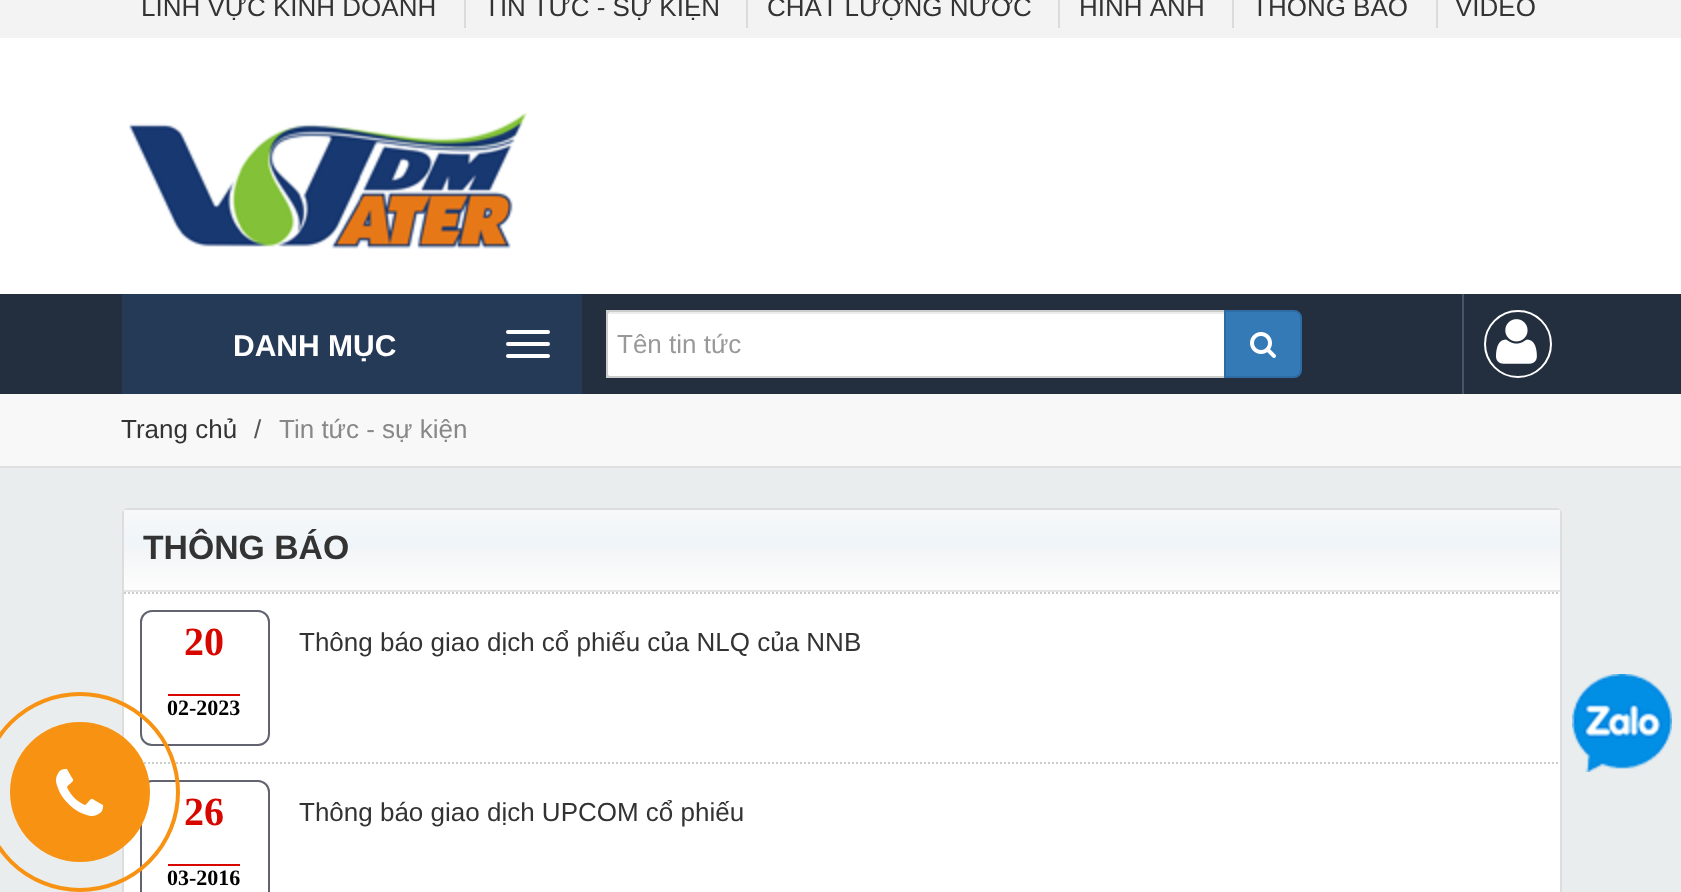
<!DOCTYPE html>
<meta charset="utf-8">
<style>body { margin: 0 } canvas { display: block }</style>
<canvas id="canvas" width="1681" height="892"></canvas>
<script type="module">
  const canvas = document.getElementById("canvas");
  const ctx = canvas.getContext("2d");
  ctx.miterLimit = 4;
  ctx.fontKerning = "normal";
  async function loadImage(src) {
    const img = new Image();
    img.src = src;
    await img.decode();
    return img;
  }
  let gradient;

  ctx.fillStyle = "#eaeded";
  ctx.fillRect(0, 0, 1681, 892);
  ctx.fillStyle = "#f3f3f3";
  ctx.fillRect(0, 0, 1681, 38);
  ctx.font = "26px Liberation Sans";
  ctx.fillStyle = "#333333";
  ctx.fillText("LĨNH VỰC KINH DOANH", 141, 16);
  ctx.fillStyle = "#dbdbdb";
  ctx.fillRect(464, 0, 2, 28);
  ctx.fillStyle = "#333333";
  ctx.fillText("TIN TỨC - SỰ KIỆN", 484, 16);
  ctx.fillStyle = "#dbdbdb";
  ctx.fillRect(746, 0, 2, 28);
  ctx.fillStyle = "#333333";
  ctx.fillText("CHẤT LƯỢNG NƯỚC", 767, 16);
  ctx.fillStyle = "#dbdbdb";
  ctx.fillRect(1058, 0, 2, 28);
  ctx.fillStyle = "#333333";
  ctx.fillText("HÌNH ẢNH", 1079, 16);
  ctx.fillStyle = "#dbdbdb";
  ctx.fillRect(1232, 0, 2, 28);
  ctx.fillStyle = "#333333";
  ctx.fillText("THÔNG BÁO", 1252, 16);
  ctx.fillStyle = "#dbdbdb";
  ctx.fillRect(1436, 0, 2, 28);
  ctx.fillStyle = "#333333";
  ctx.fillText("VIDEO", 1455, 16);
  ctx.fillStyle = "#ffffff";
  ctx.fillRect(0, 38, 1681, 256);
  ctx.fillStyle = "#232f3e";
  ctx.fillRect(0, 294, 1681, 100);
  ctx.fillStyle = "#253a56";
  ctx.fillRect(122, 294, 460, 100);
  ctx.fillStyle = "#ffffff";
  ctx.beginPath();
  ctx.roundRect(506, 330, 44, 4, 2);
  ctx.fill();
  ctx.font = "bold 30px Liberation Sans";
  ctx.fillText("DANH MỤC", 233, 356);
  ctx.beginPath();
  ctx.roundRect(506, 342, 44, 4, 2);
  ctx.fill();
  ctx.beginPath();
  ctx.roundRect(506, 354, 44, 4, 2);
  ctx.fill();
  ctx.drawImage(await loadImage("img1.png"), 129, 112, 398, 137);
  ctx.beginPath();
  ctx.roundRect(606, 310, 620, 68, [8, 0, 0, 8]);
  ctx.fill();
  ctx.fillStyle = "rgba(0, 0, 0, 0.07)";
  ctx.fillRect(608, 312, 616, 2);
  ctx.strokeStyle = "#cccccc";
  ctx.lineWidth = 2;
  ctx.strokeRect(607, 311, 618, 66);
  ctx.font = "26px Liberation Sans";
  ctx.fillStyle = "#999999";
  ctx.fillText("Tên tin tức", 617, 353);
  ctx.fillStyle = "#337ab7";
  ctx.beginPath();
  ctx.roundRect(1225, 311, 76, 66, [0, 7, 7, 0]);
  ctx.fill();
  ctx.strokeStyle = "#2e6da4";
  ctx.stroke();
  ctx.drawImage(await loadImage("img2.png"), 1250, 332, 26, 26);
  ctx.fillStyle = "#455568";
  ctx.fillRect(1462, 294, 2, 100);
  ctx.beginPath();
  ctx.arc(1518, 344, 33, 0, Math.PI * 2);
  ctx.strokeStyle = "#ffffff";
  ctx.stroke();
  ctx.drawImage(await loadImage("img3.png"), 1496, 319, 41, 45);
  ctx.fillStyle = "#f8f8f8";
  ctx.fillRect(0, 394, 1681, 72);
  ctx.fillStyle = "#dfdfdf";
  ctx.fillRect(0, 466, 1681, 2);
  ctx.fillStyle = "#333333";
  ctx.fillText("Trang chủ", 121, 438);
  ctx.fillStyle = "#555555";
  ctx.fillText("/", 254, 438);
  ctx.fillStyle = "#888888";
  ctx.fillText("Tin tức - sự kiện", 279, 438);
  ctx.beginPath();
  ctx.roundRect(123, 509, 1438, 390, 5);
  ctx.strokeStyle = "#dddddd";
  ctx.stroke();
  ctx.fillStyle = "#ffffff";
  ctx.fillRect(124, 592, 1436, 300);
  ctx.beginPath();
  ctx.roundRect(141, 611, 128, 134, 11);
  ctx.strokeStyle = "#616371";
  ctx.stroke();
  ctx.font = "bold 22px Liberation Serif";
  ctx.fillStyle = "#000000";
  ctx.fillText("02-2023", 167, 715);
  ctx.fillStyle = "#d70700";
  ctx.fillRect(168, 694, 72, 2);
  ctx.beginPath();
  ctx.moveTo(124, 763);
  ctx.lineTo(1560, 763);
  ctx.strokeStyle = "#cccccc";
  ctx.setLineDash([2, 2]);
  ctx.stroke();
  ctx.beginPath();
  ctx.roundRect(141, 781, 128, 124, 11);
  ctx.strokeStyle = "#616371";
  ctx.setLineDash([]);
  ctx.stroke();
  ctx.fillStyle = "#000000";
  ctx.fillText("03-2016", 167, 885);
  ctx.fillStyle = "#d70700";
  ctx.fillRect(168, 864, 72, 2);
  ctx.beginPath();
  ctx.arc(80, 792, 98, 0, Math.PI * 2);
  ctx.strokeStyle = "#f89213";
  ctx.lineWidth = 4;
  ctx.stroke();
  ctx.fillStyle = "#f89213";
  ctx.beginPath();
  ctx.arc(80, 792, 70, 0, Math.PI * 2);
  ctx.fill();
  ctx.drawImage(await loadImage("img4.png"), 56, 768, 48, 48);
  gradient = ctx.createLinearGradient(842, 510, 842, 590);
  gradient.addColorStop(0, "#f7f8f9");
  gradient.addColorStop(0.43, "#eff5f9");
  gradient.addColorStop(0.51, "#f4f5f7");
  gradient.addColorStop(0.92, "#fcfcfc");
  ctx.fillStyle = gradient;
  ctx.fillRect(124, 510, 1436, 80);
  ctx.fillStyle = "#e5e5e5";
  ctx.fillRect(124, 590, 1436, 2);
  ctx.font = "bold 33.75px Liberation Sans";
  ctx.fillStyle = "#333333";
  ctx.fillText("THÔNG BÁO", 143, 559);
  ctx.beginPath();
  ctx.moveTo(124, 593);
  ctx.lineTo(1560, 593);
  ctx.strokeStyle = "#cccccc";
  ctx.lineWidth = 2;
  ctx.setLineDash([2, 2]);
  ctx.stroke();
  ctx.font = "bold 40px Liberation Serif";
  ctx.fillStyle = "#d70700";
  ctx.fillText("20", 184, 655);
  ctx.font = "26px Liberation Sans";
  ctx.fillStyle = "#333333";
  ctx.fillText("Thông báo giao dịch cổ phiếu của NLQ của NNB", 299, 651);
  ctx.font = "bold 40px Liberation Serif";
  ctx.fillStyle = "#d70700";
  ctx.fillText("26", 184, 825);
  ctx.font = "26px Liberation Sans";
  ctx.fillStyle = "#333333";
  ctx.fillText("Thông báo giao dịch UPCOM cổ phiếu", 299, 821);
  ctx.drawImage(await loadImage("img5.png"), 1572, 674, 100, 98);
</script>
